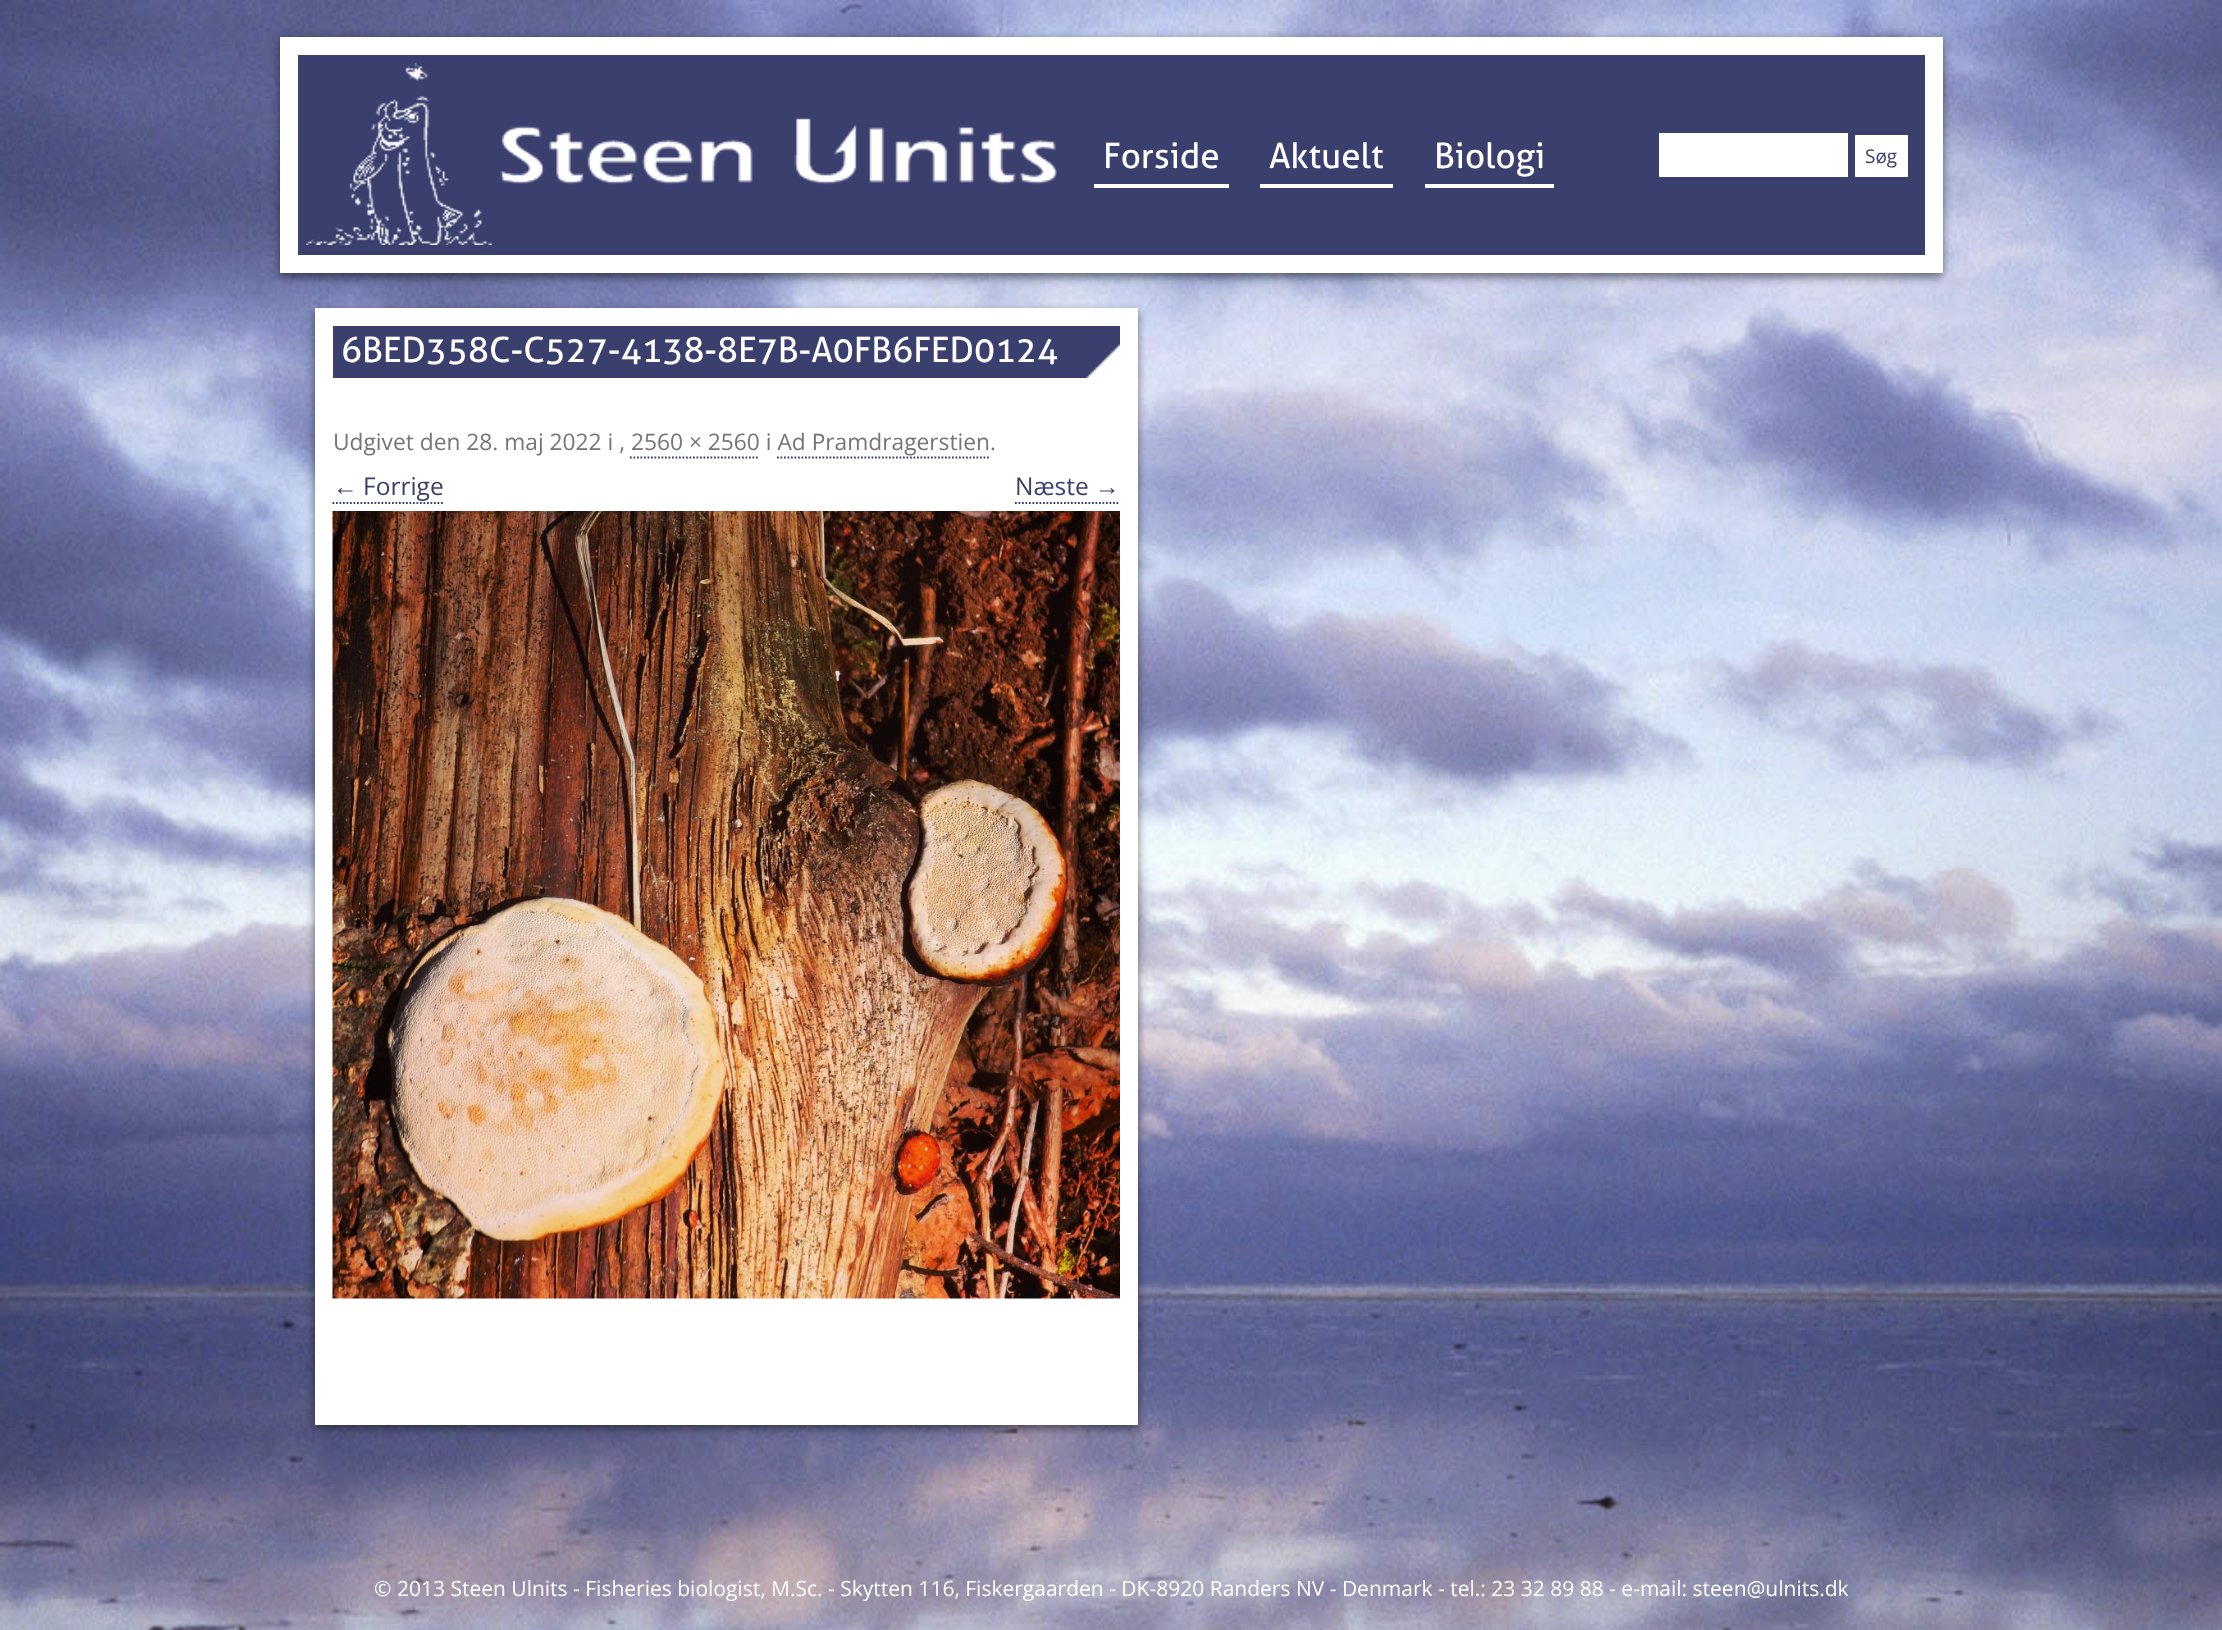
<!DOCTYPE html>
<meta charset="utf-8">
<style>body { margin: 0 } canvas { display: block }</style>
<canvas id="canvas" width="2222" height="1630"></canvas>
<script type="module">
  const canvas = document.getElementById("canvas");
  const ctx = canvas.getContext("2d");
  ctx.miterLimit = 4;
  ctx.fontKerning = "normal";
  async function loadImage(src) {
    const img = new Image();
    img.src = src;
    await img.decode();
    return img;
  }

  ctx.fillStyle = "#ffffff";
  ctx.fillRect(0, 0, 2222, 1630);
  ctx.drawImage(await loadImage("img1.png"), 0, 0, 2222, 1630);
  ctx.fillStyle = "rgba(0, 0, 0, 0.5)";
  ctx.filter = "blur(5px)";
  ctx.beginPath();
  ctx.rect(280, 40, 1663, 237);
  ctx.fill();
  ctx.filter = "none";
  ctx.fillStyle = "#3a3f6e";
  ctx.beginPath();
  ctx.rect(289, 46, 1645, 218);
  ctx.fill();
  ctx.strokeStyle = "#ffffff";
  ctx.lineWidth = 18;
  ctx.stroke();
  ctx.drawImage(await loadImage("img2.png"), 306, 63, 751, 182);
  ctx.fillStyle = "#ffffff";
  ctx.fillRect(1094, 184, 135, 4);
  ctx.font = "35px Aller";
  ctx.fillText("Forside", 1103, 168);
  ctx.fillRect(1260, 184, 133, 4);
  ctx.fillText("Aktuelt", 1269, 168);
  ctx.fillRect(1425, 184, 129, 4);
  ctx.fillText("Biologi", 1434, 168);
  ctx.fillRect(1659, 133, 189, 44);
  ctx.fillRect(1855, 135, 53, 42);
  ctx.font = "19px Open Sans";
  ctx.fillStyle = "#393f6d";
  ctx.fillText("Søg", 1865, 163);
  ctx.fillStyle = "rgba(0, 0, 0, 0.5)";
  ctx.filter = "blur(5px)";
  ctx.beginPath();
  ctx.rect(315, 312, 823, 1116);
  ctx.fill();
  ctx.filter = "none";
  ctx.fillStyle = "#ffffff";
  ctx.fillRect(315, 308, 823, 1117);
  ctx.fillStyle = "#3a3f6e";
  ctx.fillRect(333, 326, 787, 52);
  ctx.drawImage(await loadImage("img3.png"), 1086, 344, 34, 34);
  ctx.font = "35px Aller";
  ctx.fillStyle = "#ffffff";
  ctx.fillText("6BED358C-C527-4138-8E7B-A0FB6FED0124", 341, 362);
  ctx.font = "22.75px Open Sans";
  ctx.fillStyle = "#757575";
  ctx.fillText("Udgivet den 28. maj 2022 i , 2560 × 2560 i Ad Pramdragerstien.", 333, 450);
  ctx.beginPath();
  ctx.moveTo(630, 457.5);
  ctx.lineTo(759.5, 457.5);
  ctx.strokeStyle = "#393f6d";
  ctx.lineWidth = 1.8;
  ctx.setLineDash([1.75, 1.75]);
  ctx.stroke();
  ctx.beginPath();
  ctx.moveTo(777, 457.5);
  ctx.lineTo(990.5, 457.5);
  ctx.stroke();
  ctx.font = "24.5px Liberation Sans";
  ctx.fillStyle = "#393f6d";
  ctx.fillText("←", 333, 495);
  ctx.beginPath();
  ctx.moveTo(332.5, 503);
  ctx.lineTo(444.5, 503);
  ctx.stroke();
  ctx.font = "24.5px Open Sans";
  ctx.fillText("Forrige", 363, 495);
  ctx.fillText("Næste", 1015, 495);
  ctx.font = "24.5px Liberation Sans";
  ctx.fillText("→", 1095, 495);
  ctx.beginPath();
  ctx.moveTo(1015, 503);
  ctx.lineTo(1120, 503);
  ctx.stroke();
  ctx.drawImage(await loadImage("img4.png"), 332, 511, 788, 788);
  ctx.font = "21px Open Sans";
  ctx.fillStyle = "#ffffff";
  ctx.fillText("© 2013 Steen Ulnits - Fisheries biologist, M.Sc. - Skytten 116, Fiskergaarden - DK-8920 Randers NV - Denmark - tel.: 23 32 89 88 - e-mail: steen@ulnits.dk", 374, 1596);
</script>
